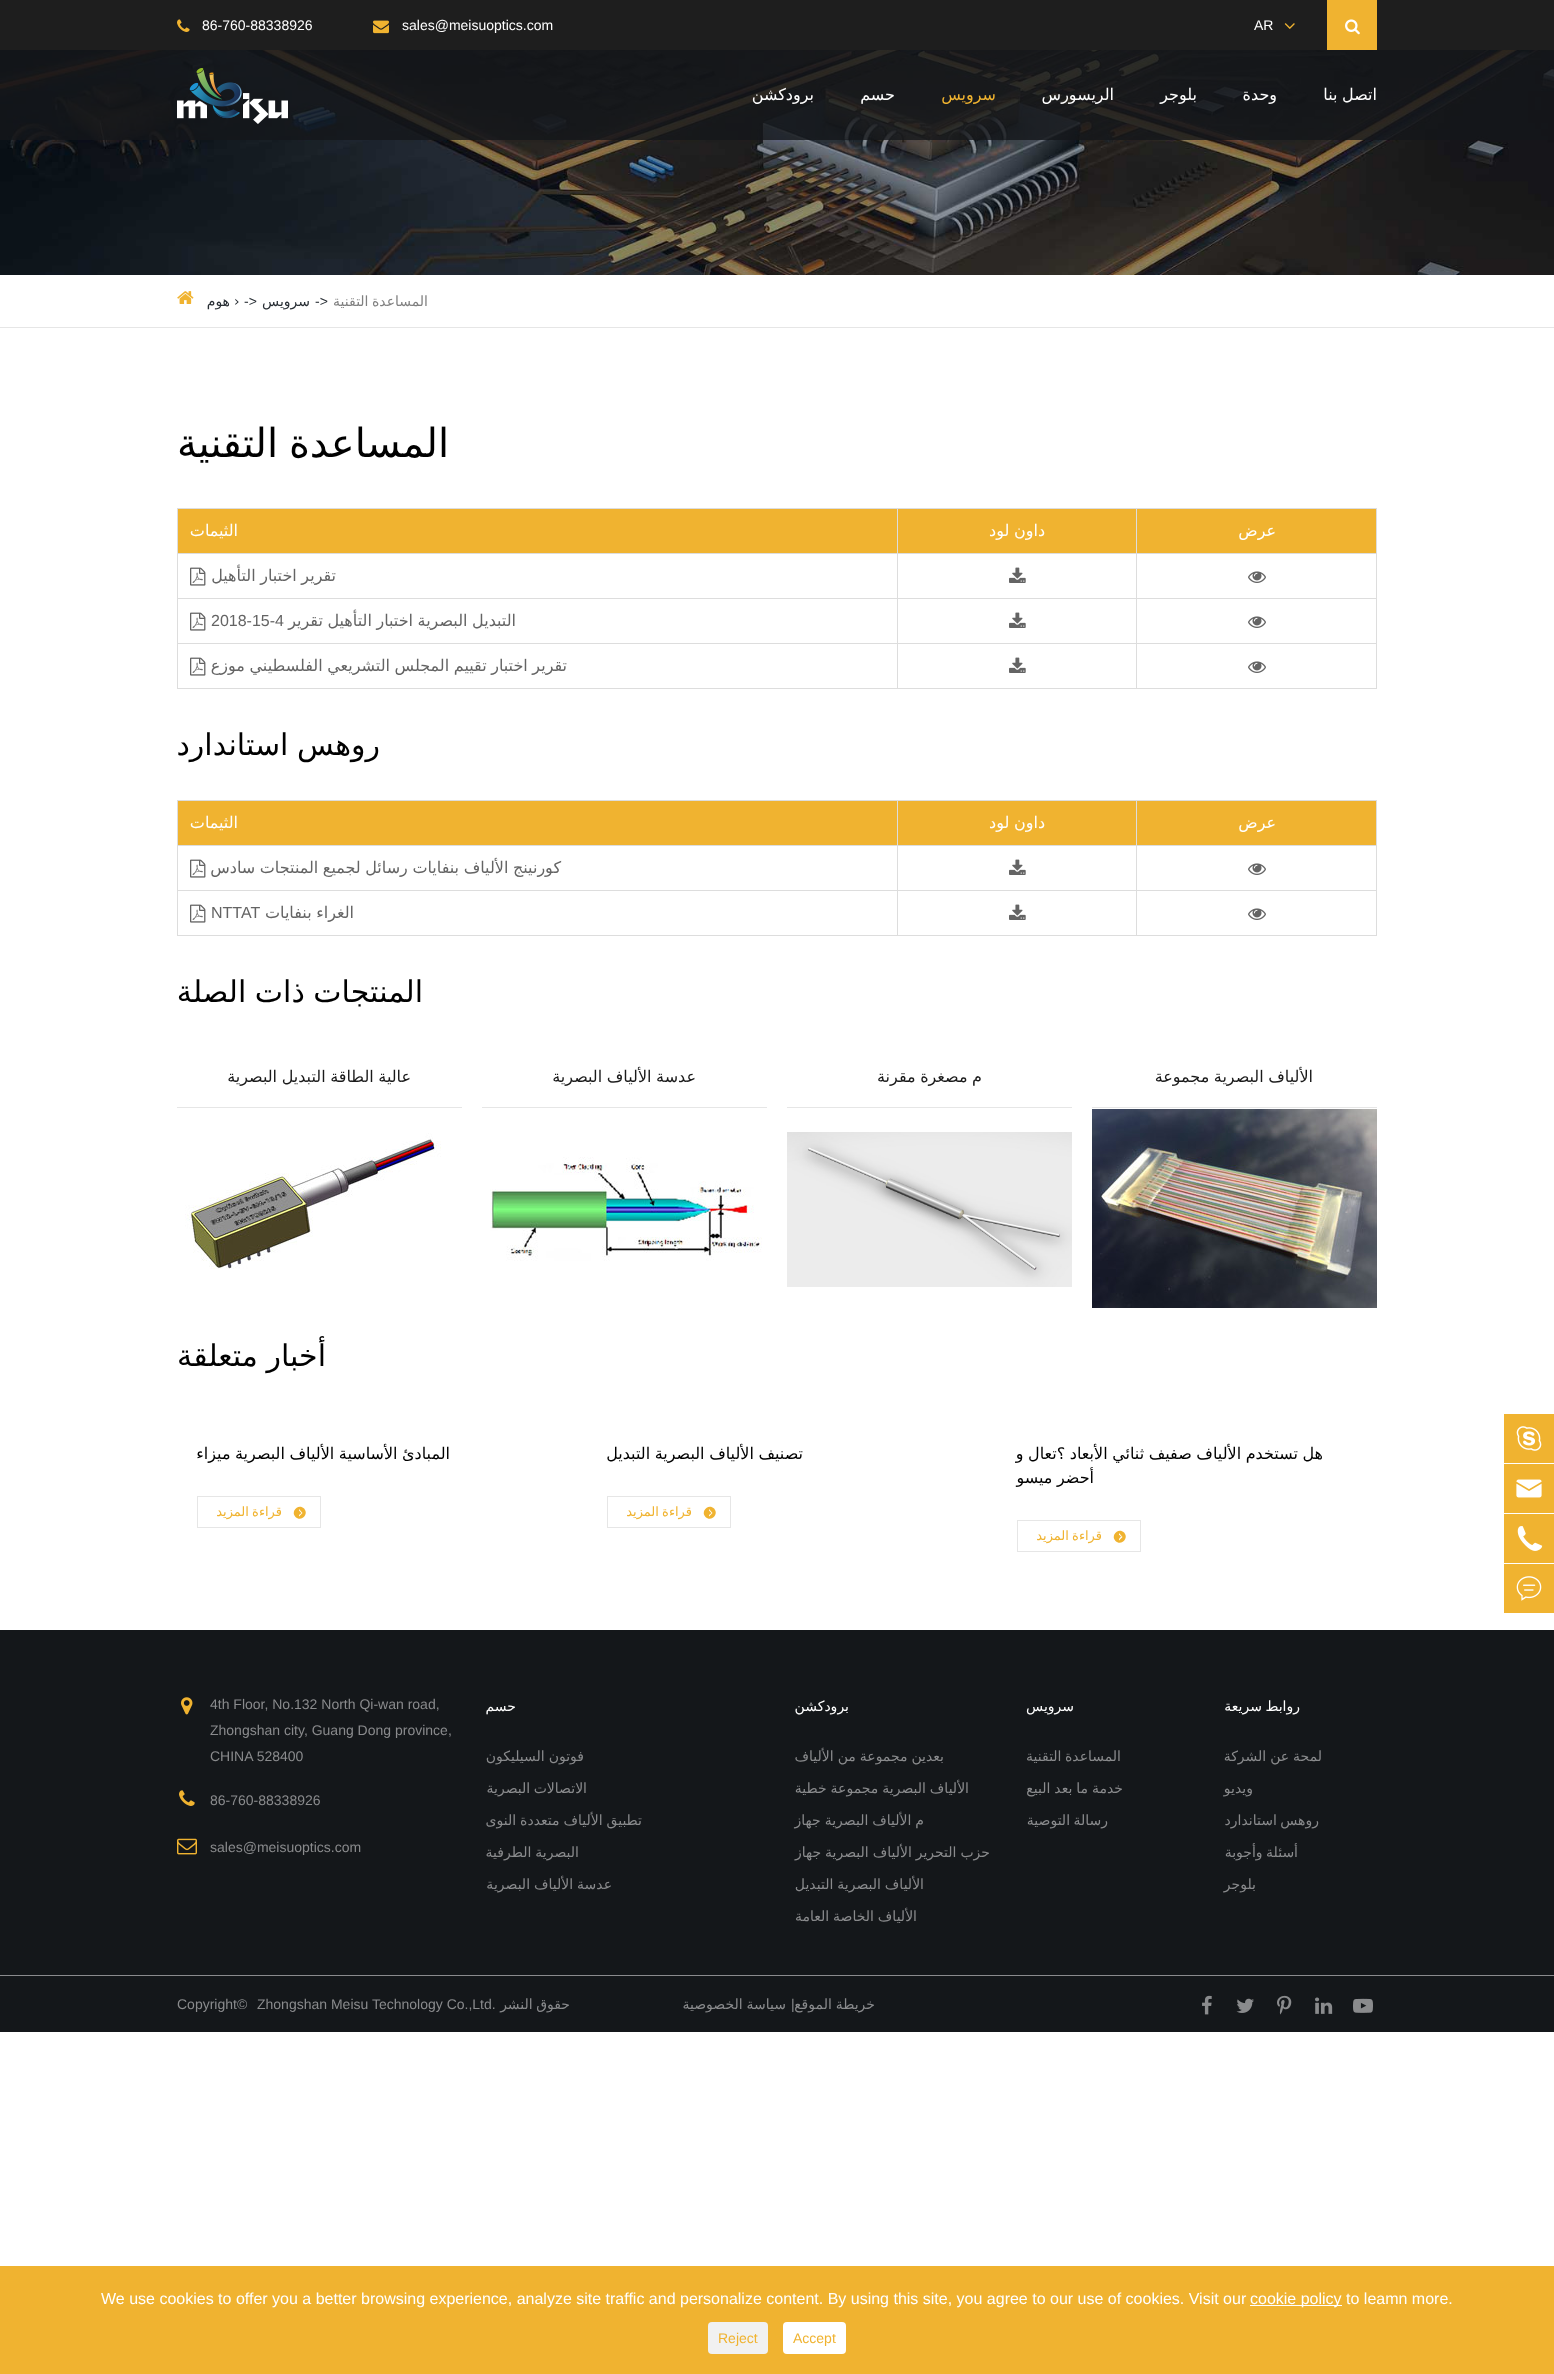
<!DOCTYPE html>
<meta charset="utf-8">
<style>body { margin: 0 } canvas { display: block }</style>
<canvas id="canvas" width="1554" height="2374"></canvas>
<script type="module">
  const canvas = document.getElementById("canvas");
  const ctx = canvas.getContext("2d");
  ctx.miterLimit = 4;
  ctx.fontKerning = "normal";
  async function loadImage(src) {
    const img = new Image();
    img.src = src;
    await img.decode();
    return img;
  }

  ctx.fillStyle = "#ffffff";
  ctx.fillRect(0, 0, 1554, 2374);
  ctx.fillStyle = "#1e1e1e";
  ctx.fillRect(0, 0, 1554, 50);
  ctx.fillStyle = "#f0b330";
  ctx.fillRect(1327, 0, 50, 50);
  ctx.drawImage(await loadImage("img1.png"), 1345, 19, 15, 16);
  ctx.drawImage(await loadImage("img2.png"), 1284, 23, 11, 6);
  ctx.font = "14px Liberation Sans";
  ctx.fillStyle = "#ffffff";
  ctx.fillText("AR", 1254, 30);
  ctx.fillText("sales@meisuoptics.com", 402, 30);
  ctx.drawImage(await loadImage("img3.png"), 373, 20, 16, 14);
  ctx.fillText("86-760-88338926", 202, 30);
  ctx.drawImage(await loadImage("img4.png"), 177, 19, 13, 13);
  ctx.drawImage(await loadImage("img6.png"), 0, 50, 1554, 225);
  ctx.fillStyle = "rgba(20, 23, 26, 0.8)";
  ctx.fillRect(0, 50, 1554, 90);
  ctx.wordSpacing = "-0.5px";
  ctx.direction = "rtl";
  ctx.font = "16px DejaVu Sans";
  ctx.fillStyle = "#ffffff";
  ctx.fillText("اتصل بنا", 1377, 100);
  ctx.wordSpacing = "0px";
  ctx.fillText("وحدة", 1277, 100);
  ctx.fillText("بلوجر", 1197, 100);
  ctx.fillText("الريسورس", 1114, 100);
  ctx.fillStyle = "#f0b330";
  ctx.fillText("سرویس", 996, 100);
  ctx.fillStyle = "#ffffff";
  ctx.fillText("حسم", 895, 100);
  ctx.fillText("برودكشن", 814, 100);
  ctx.drawImage(await loadImage("img5.png"), 177, 68, 111, 56);
  ctx.fillStyle = "#e6e6e6";
  ctx.fillRect(0, 327, 1554, 1);
  ctx.wordSpacing = "-1px";
  ctx.font = "14px DejaVu Sans";
  ctx.fillStyle = "#808080";
  ctx.fillText("المساعدة التقنية", 428, 306);
  ctx.wordSpacing = "0px";
  ctx.direction = "ltr";
  ctx.font = "14px Liberation Sans";
  ctx.fillStyle = "#272d33";
  ctx.fillText("->", 315, 306);
  ctx.direction = "rtl";
  ctx.font = "14px DejaVu Sans";
  ctx.fillText("سرویس", 310, 306);
  ctx.direction = "ltr";
  ctx.font = "14px Liberation Sans";
  ctx.fillText("->", 244, 306);
  ctx.font = "14px DejaVu Sans";
  ctx.fillText("›", 234, 306);
  ctx.direction = "rtl";
  ctx.fillText("هوم", 230, 306);
  ctx.drawImage(await loadImage("img7.png"), 177, 291, 17, 13);
  ctx.fillStyle = "#f0b330";
  ctx.fillRect(1504, 1414, 50, 49);
  ctx.drawImage(await loadImage("img8.png"), 1516, 1426, 26, 25);
  ctx.fillRect(1504, 1464, 50, 49);
  ctx.drawImage(await loadImage("img9.png"), 1516, 1479, 26, 19);
  ctx.fillRect(1504, 1514, 50, 49);
  ctx.drawImage(await loadImage("img10.png"), 1517, 1526, 26, 25);
  ctx.fillRect(1504, 1564, 50, 49);
  ctx.drawImage(await loadImage("img11.png"), 1516, 1576, 26, 25);
  ctx.wordSpacing = "-2px";
  ctx.font = "40px DejaVu Sans";
  ctx.fillStyle = "#000000";
  ctx.fillText("المساعدة التقنية", 449, 457);
  ctx.strokeStyle = "#dddddd";
  ctx.strokeRect(177.5, 508.5, 1199, 180);
  ctx.fillStyle = "#f0b330";
  ctx.fillRect(178, 509, 1198, 44);
  ctx.fillStyle = "#dddddd";
  ctx.fillRect(1136, 509, 1, 44);
  ctx.wordSpacing = "0px";
  ctx.font = "16px DejaVu Sans";
  ctx.fillStyle = "#ffffff";
  ctx.fillText("عرض", 1276, 536);
  ctx.fillStyle = "#dddddd";
  ctx.fillRect(897, 509, 1, 44);
  ctx.wordSpacing = "-0.5px";
  ctx.fillStyle = "#ffffff";
  ctx.fillText("داون لود", 1045, 536);
  ctx.wordSpacing = "0px";
  ctx.fillText("الثيمات", 238, 536);
  ctx.fillStyle = "#dddddd";
  ctx.fillRect(178, 553, 1198, 1);
  ctx.fillRect(1136, 554, 1, 44);
  ctx.drawImage(await loadImage("img12.png"), 1248, 571, 18, 12);
  ctx.fillRect(897, 554, 1, 44);
  ctx.drawImage(await loadImage("img13.png"), 1009, 567, 17, 16);
  ctx.wordSpacing = "-0.5px";
  ctx.fillStyle = "#646464";
  ctx.fillText("تقرير اختبار التأهيل", 336, 581);
  ctx.drawImage(await loadImage("img14.png"), 190, 567, 16, 19);
  ctx.fillStyle = "#dddddd";
  ctx.fillRect(178, 598, 1198, 1);
  ctx.fillRect(1136, 599, 1, 44);
  ctx.drawImage(await loadImage("img12.png"), 1248, 616, 18, 12);
  ctx.fillRect(897, 599, 1, 44);
  ctx.drawImage(await loadImage("img13.png"), 1009, 612, 17, 16);
  ctx.fillStyle = "#646464";
  ctx.fillText("التبديل البصرية اختبار التأهيل تقرير", 516, 626);
  ctx.wordSpacing = "0px";
  ctx.direction = "ltr";
  ctx.font = "16px Liberation Sans";
  ctx.fillText("2018-15-4", 211, 626);
  ctx.drawImage(await loadImage("img14.png"), 190, 612, 16, 19);
  ctx.fillStyle = "#dddddd";
  ctx.fillRect(178, 643, 1198, 1);
  ctx.fillRect(1136, 644, 1, 44);
  ctx.drawImage(await loadImage("img12.png"), 1248, 661, 18, 12);
  ctx.fillRect(897, 644, 1, 44);
  ctx.drawImage(await loadImage("img13.png"), 1009, 657, 17, 16);
  ctx.wordSpacing = "-0.5px";
  ctx.direction = "rtl";
  ctx.font = "16px DejaVu Sans";
  ctx.fillStyle = "#646464";
  ctx.fillText("تقرير اختبار تقييم المجلس التشريعي الفلسطيني موزع", 567, 671);
  ctx.drawImage(await loadImage("img14.png"), 190, 657, 16, 19);
  ctx.wordSpacing = "-1px";
  ctx.font = "30px DejaVu Sans";
  ctx.fillStyle = "#000000";
  ctx.fillText("روهس استاندارد", 380, 755);
  ctx.strokeRect(177.5, 800.5, 1199, 135);
  ctx.fillStyle = "#f0b330";
  ctx.fillRect(178, 801, 1198, 44);
  ctx.fillStyle = "#dddddd";
  ctx.fillRect(1136, 801, 1, 44);
  ctx.wordSpacing = "0px";
  ctx.font = "16px DejaVu Sans";
  ctx.fillStyle = "#ffffff";
  ctx.fillText("عرض", 1276, 828);
  ctx.fillStyle = "#dddddd";
  ctx.fillRect(897, 801, 1, 44);
  ctx.wordSpacing = "-0.5px";
  ctx.fillStyle = "#ffffff";
  ctx.fillText("داون لود", 1045, 828);
  ctx.wordSpacing = "0px";
  ctx.fillText("الثيمات", 238, 828);
  ctx.fillStyle = "#dddddd";
  ctx.fillRect(178, 845, 1198, 1);
  ctx.fillRect(1136, 846, 1, 44);
  ctx.drawImage(await loadImage("img12.png"), 1248, 863, 18, 12);
  ctx.fillRect(897, 846, 1, 44);
  ctx.drawImage(await loadImage("img13.png"), 1009, 859, 17, 16);
  ctx.wordSpacing = "-0.5px";
  ctx.fillStyle = "#646464";
  ctx.fillText("كورنينج الألياف بنفايات رسائل لجميع المنتجات سادس", 561, 873);
  ctx.drawImage(await loadImage("img14.png"), 190, 859, 16, 19);
  ctx.fillStyle = "#dddddd";
  ctx.fillRect(178, 890, 1198, 1);
  ctx.fillRect(1136, 891, 1, 44);
  ctx.drawImage(await loadImage("img12.png"), 1248, 908, 18, 12);
  ctx.fillRect(897, 891, 1, 44);
  ctx.drawImage(await loadImage("img13.png"), 1009, 904, 17, 16);
  ctx.fillStyle = "#646464";
  ctx.fillText("الغراء بنفايات", 354, 918);
  ctx.wordSpacing = "0px";
  ctx.direction = "ltr";
  ctx.font = "16px Liberation Sans";
  ctx.fillText("NTTAT", 211, 918);
  ctx.drawImage(await loadImage("img14.png"), 190, 904, 16, 19);
  ctx.wordSpacing = "-1px";
  ctx.direction = "rtl";
  ctx.font = "30px DejaVu Sans";
  ctx.fillStyle = "#000000";
  ctx.fillText("المنتجات ذات الصلة", 423, 1002);
  ctx.fillStyle = "#e6e6e6";
  ctx.fillRect(1092, 1107, 285, 1);
  ctx.wordSpacing = "-0.5px";
  ctx.font = "16px DejaVu Sans";
  ctx.fillStyle = "#1a1a1a";
  ctx.fillText("الألياف البصرية مجموعة", 1313, 1082);
  ctx.drawImage(await loadImage("img15.png"), 1092, 1109, 285, 199);
  ctx.fillStyle = "#e6e6e6";
  ctx.fillRect(787, 1107, 285, 1);
  ctx.fillStyle = "#1a1a1a";
  ctx.fillText("م مصغرة مقرنة", 982, 1082);
  ctx.drawImage(await loadImage("img16.png"), 787, 1132, 285, 155);
  ctx.fillStyle = "#e6e6e6";
  ctx.fillRect(482, 1107, 285, 1);
  ctx.fillStyle = "#1a1a1a";
  ctx.fillText("عدسة الألياف البصرية", 696, 1082);
  ctx.drawImage(await loadImage("img17.png"), 490, 1157, 272, 104);
  ctx.fillStyle = "#e6e6e6";
  ctx.fillRect(177, 1107, 285, 1);
  ctx.fillStyle = "#1a1a1a";
  ctx.fillText("عالية الطاقة التبديل البصرية", 411, 1082);
  ctx.drawImage(await loadImage("img18.png"), 185, 1133, 256, 136);
  ctx.wordSpacing = "-1px";
  ctx.font = "30px DejaVu Sans";
  ctx.fillStyle = "#000000";
  ctx.fillText("أخبار متعلقة", 326, 1366);
  ctx.wordSpacing = "-0.5px";
  ctx.font = "16px DejaVu Sans";
  ctx.fillText("هل تستخدم الألياف صفيف ثنائي الأبعاد ؟تعال و", 1323, 1459);
  ctx.fillText("أحضر ميسو", 1094, 1483);
  ctx.strokeStyle = "#e6e6e6";
  ctx.strokeRect(1017.5, 1520.5, 123, 31);
  ctx.fillStyle = "#f0b330";
  ctx.beginPath();
  ctx.moveTo(1124, 1532.5);
  ctx.bezierCurveTo(1129.5, 1538, 1121, 1546.5, 1115.5, 1541);
  ctx.bezierCurveTo(1110, 1535.5, 1118.5, 1527, 1124, 1532.5);
  ctx.closePath();
  ctx.fill();
  ctx.fillStyle = "#ffffff";
  ctx.beginPath();
  ctx.moveTo(1119, 1533);
  ctx.lineTo(1122.5, 1537);
  ctx.lineTo(1121, 1536.5);
  ctx.lineTo(1119, 1534.5);
  ctx.closePath();
  ctx.fill();
  ctx.beginPath();
  ctx.moveTo(1122.5, 1537);
  ctx.lineTo(1119, 1540.5);
  ctx.lineTo(1119, 1539);
  ctx.lineTo(1121, 1536.5);
  ctx.closePath();
  ctx.fill();
  ctx.wordSpacing = "-1px";
  ctx.font = "13px DejaVu Sans";
  ctx.fillStyle = "#f0b330";
  ctx.fillText("قراءة المزيد", 1102, 1540);
  ctx.wordSpacing = "-0.5px";
  ctx.font = "16px DejaVu Sans";
  ctx.fillStyle = "#000000";
  ctx.fillText("تصنيف الألياف البصرية التبديل", 803, 1459);
  ctx.strokeRect(607.5, 1496.5, 123, 31);
  ctx.fillStyle = "#f0b330";
  ctx.beginPath();
  ctx.moveTo(714, 1508.5);
  ctx.bezierCurveTo(719.5, 1514, 711, 1522.5, 705.5, 1517);
  ctx.bezierCurveTo(700, 1511.5, 708.5, 1503, 714, 1508.5);
  ctx.closePath();
  ctx.fill();
  ctx.fillStyle = "#ffffff";
  ctx.beginPath();
  ctx.moveTo(709, 1509);
  ctx.lineTo(712.5, 1513);
  ctx.lineTo(711.5, 1513);
  ctx.lineTo(709, 1510.5);
  ctx.closePath();
  ctx.moveTo(712.5, 1513);
  ctx.lineTo(709, 1516.5);
  ctx.lineTo(709, 1515);
  ctx.lineTo(711.5, 1513);
  ctx.closePath();
  ctx.fill();
  ctx.wordSpacing = "-1px";
  ctx.font = "13px DejaVu Sans";
  ctx.fillStyle = "#f0b330";
  ctx.fillText("قراءة المزيد", 692, 1516);
  ctx.wordSpacing = "-0.5px";
  ctx.font = "16px DejaVu Sans";
  ctx.fillStyle = "#000000";
  ctx.fillText("المبادئ الأساسية الألياف البصرية ميزاء", 450, 1459);
  ctx.strokeRect(197.5, 1496.5, 123, 31);
  ctx.fillStyle = "#f0b330";
  ctx.beginPath();
  ctx.moveTo(304, 1508.5);
  ctx.bezierCurveTo(309.5, 1514, 301, 1522.5, 295.5, 1517);
  ctx.bezierCurveTo(290, 1511.5, 298.5, 1503, 304, 1508.5);
  ctx.closePath();
  ctx.fill();
  ctx.fillStyle = "#ffffff";
  ctx.beginPath();
  ctx.moveTo(299, 1509);
  ctx.lineTo(302.5, 1513);
  ctx.lineTo(301.5, 1513);
  ctx.lineTo(299, 1510.5);
  ctx.closePath();
  ctx.moveTo(302.5, 1513);
  ctx.lineTo(299, 1516.5);
  ctx.lineTo(299, 1515);
  ctx.lineTo(301.5, 1513);
  ctx.closePath();
  ctx.fill();
  ctx.wordSpacing = "-1px";
  ctx.font = "13px DejaVu Sans";
  ctx.fillStyle = "#f0b330";
  ctx.fillText("قراءة المزيد", 282, 1516);
  ctx.fillStyle = "#14171a";
  ctx.fillRect(0, 1630, 1554, 402);
  ctx.font = "14px DejaVu Sans";
  ctx.fillStyle = "#ffffff";
  ctx.fillText("روابط سريعة", 1300, 1711);
  ctx.wordSpacing = "-0.5px";
  ctx.fillStyle = "#8a8b8d";
  ctx.fillText("لمحة عن الشركة", 1322, 1761);
  ctx.wordSpacing = "0px";
  ctx.fillText("ويديو", 1253, 1793);
  ctx.wordSpacing = "-1px";
  ctx.fillText("روهس استاندارد", 1319, 1825);
  ctx.fillText("أسئلة وأجوبة", 1298, 1857);
  ctx.wordSpacing = "0px";
  ctx.fillText("بلوجر", 1256, 1889);
  ctx.fillStyle = "#ffffff";
  ctx.fillText("سرویس", 1074, 1711);
  ctx.wordSpacing = "-1px";
  ctx.fillStyle = "#8a8b8d";
  ctx.fillText("المساعدة التقنية", 1121, 1761);
  ctx.wordSpacing = "-0.5px";
  ctx.fillText("خدمة ما بعد البيع", 1123, 1793);
  ctx.wordSpacing = "-1px";
  ctx.fillText("رسالة التوصية", 1108, 1825);
  ctx.wordSpacing = "0px";
  ctx.fillStyle = "#ffffff";
  ctx.fillText("برودكشن", 849, 1711);
  ctx.wordSpacing = "-0.5px";
  ctx.fillStyle = "#8a8b8d";
  ctx.fillText("بعدين مجموعة من الألياف", 944, 1761);
  ctx.fillText("الألياف البصرية مجموعة خطية", 969, 1793);
  ctx.fillText("م الألياف البصرية جهاز", 924, 1825);
  ctx.fillText("حزب التحرير الألياف البصرية جهاز", 990, 1857);
  ctx.fillText("الألياف البصرية التبديل", 924, 1889);
  ctx.fillText("الألياف الخاصة العامة", 917, 1921);
  ctx.wordSpacing = "0px";
  ctx.fillStyle = "#ffffff";
  ctx.fillText("حسم", 516, 1711);
  ctx.wordSpacing = "-0.5px";
  ctx.fillStyle = "#8a8b8d";
  ctx.fillText("فوتون السيليكون", 584, 1761);
  ctx.wordSpacing = "-1px";
  ctx.fillText("الاتصالات البصرية", 587, 1793);
  ctx.wordSpacing = "-0.5px";
  ctx.fillText("تطبيق الألياف متعددة النوى", 642, 1825);
  ctx.fillText("البصرية الطرفية", 579, 1857);
  ctx.fillText("عدسة الألياف البصرية", 612, 1889);
  ctx.wordSpacing = "0px";
  ctx.direction = "ltr";
  ctx.font = "14px Liberation Sans";
  ctx.fillText("4th Floor, No.132 North Qi-wan road,", 210, 1709);
  ctx.fillText("Zhongshan city, Guang Dong province,", 210, 1735);
  ctx.fillText("CHINA 528400", 210, 1761);
  ctx.drawImage(await loadImage("img19.png"), 181, 1697, 12, 18);
  ctx.fillText("86-760-88338926", 210, 1805);
  ctx.drawImage(await loadImage("img20.png"), 179, 1790, 16, 16);
  ctx.fillText("sales@meisuoptics.com", 210, 1852);
  ctx.drawImage(await loadImage("img21.png"), 177, 1838, 20, 17);
  ctx.fillRect(0, 1975, 1554, 1);
  ctx.drawImage(await loadImage("img22.png"), 1353, 1998, 20, 15);
  ctx.drawImage(await loadImage("img23.png"), 1315, 1997, 18, 17);
  ctx.drawImage(await loadImage("img24.png"), 1277, 1995, 15, 20);
  ctx.drawImage(await loadImage("img25.png"), 1236, 1998, 18, 15);
  ctx.drawImage(await loadImage("img26.png"), 1202, 1995, 10, 20);
  ctx.wordSpacing = "-0.5px";
  ctx.direction = "rtl";
  ctx.font = "14px DejaVu Sans";
  ctx.fillText("خريطة الموقع", 875, 2009);
  ctx.wordSpacing = "0px";
  ctx.direction = "ltr";
  ctx.font = "14px Liberation Sans";
  ctx.fillText("|", 791, 2009);
  ctx.wordSpacing = "-0.5px";
  ctx.direction = "rtl";
  ctx.font = "14px DejaVu Sans";
  ctx.fillText("سياسة الخصوصية", 786, 2009);
  ctx.wordSpacing = "-1px";
  ctx.fillText("حقوق النشر", 570, 2009);
  ctx.wordSpacing = "0px";
  ctx.direction = "ltr";
  ctx.font = "14px Liberation Sans";
  ctx.fillText("Zhongshan Meisu Technology Co.,Ltd.", 257, 2009);
  ctx.fillText("Copyright©", 177, 2009);
  ctx.fillStyle = "#f0b330";
  ctx.fillRect(0, 2266, 1554, 108);
  ctx.fillStyle = "#ffffff";
  ctx.fillRect(1250, 2305, 92, 1);
  ctx.font = "16px Liberation Sans";
  ctx.fillText("cookie policy to leamn more.", 1250, 2304);
  ctx.fillText("We use cookies to offer you a better browsing experience, analyze site traffic and personalize content. By using this site, you agree to our use of cookies. Visit our", 101, 2304);
  ctx.beginPath();
  ctx.roundRect(783, 2322, 63, 32, 4);
  ctx.fill();
  ctx.font = "14px Liberation Sans";
  ctx.fillStyle = "#f0b330";
  ctx.fillText("Accept", 793, 2343);
  ctx.fillStyle = "#f1f1f1";
  ctx.beginPath();
  ctx.roundRect(708, 2322, 60, 32, 4);
  ctx.fill();
  ctx.fillStyle = "#f0b330";
  ctx.fillText("Reject", 718, 2343);
</script>
